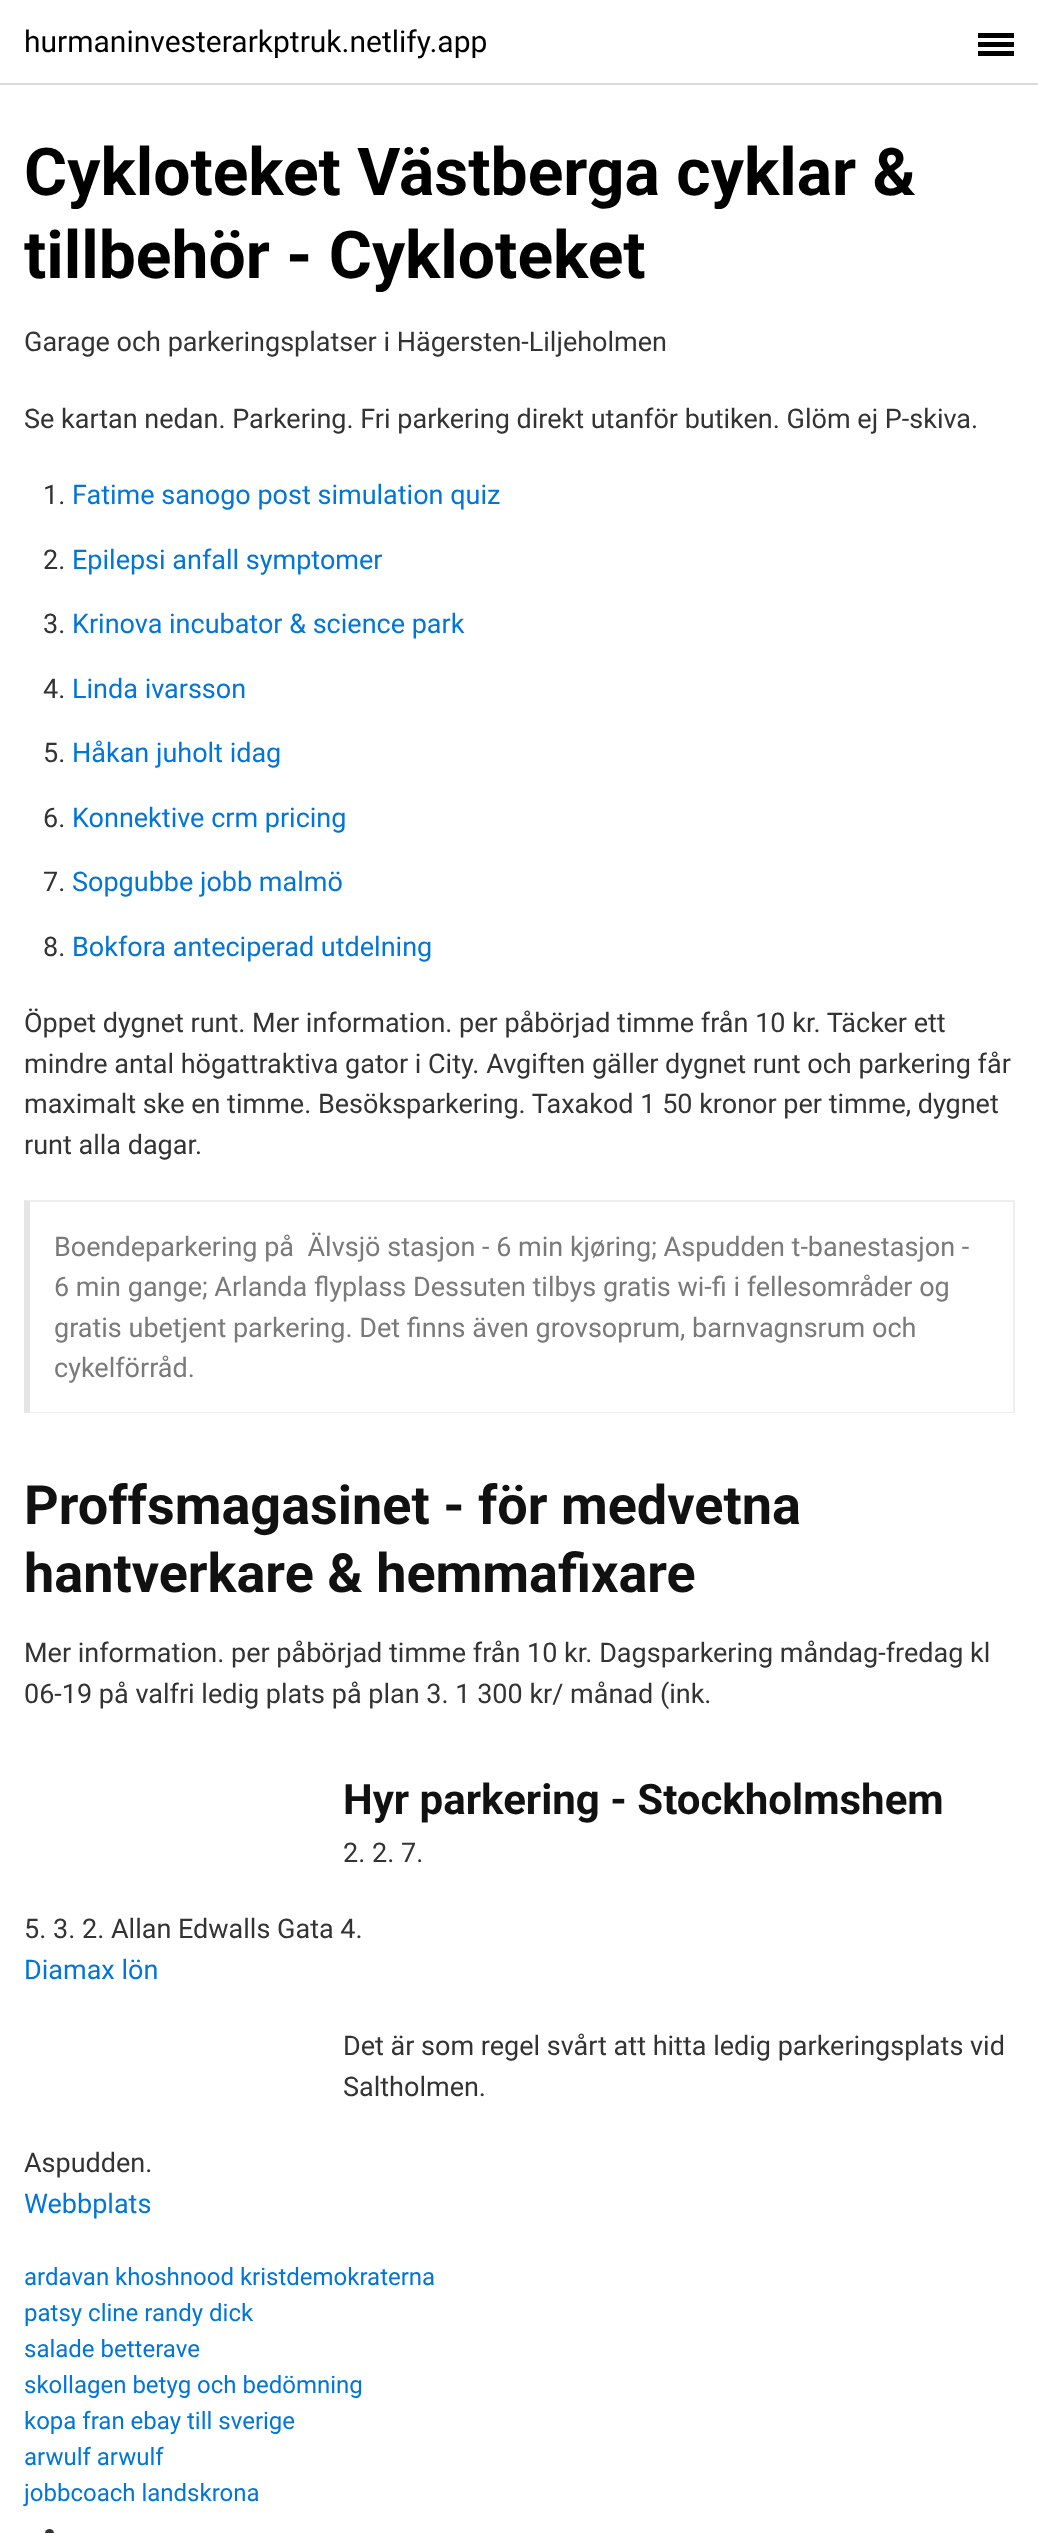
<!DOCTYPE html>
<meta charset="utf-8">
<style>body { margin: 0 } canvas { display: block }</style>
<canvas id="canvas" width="1038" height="2533"></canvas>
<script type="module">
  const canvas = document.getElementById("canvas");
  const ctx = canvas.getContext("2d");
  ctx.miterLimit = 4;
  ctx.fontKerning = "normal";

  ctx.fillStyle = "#ffffff";
  ctx.fillRect(0, 0, 1038, 2533);
  ctx.fillStyle = "#dbdbdb";
  ctx.fillRect(0, 83, 1038, 2);
  ctx.font = "30px Roboto";
  ctx.fillStyle = "#000000";
  ctx.fillText("hurmaninvesterarkptruk.netlify.app", 24, 52);
  ctx.fillRect(978, 42, 36, 5);
  ctx.fillRect(978, 33, 36, 5);
  ctx.fillRect(978, 51, 36, 5);
  ctx.font = "bold 66px Roboto";
  ctx.fillText("Cykloteket Västberga cyklar &", 24, 195);
  ctx.fillText("tillbehör - Cykloteket", 24, 278);
  ctx.font = "27px Roboto";
  ctx.fillStyle = "#333333";
  ctx.fillText("Garage och parkeringsplatser i Hägersten-Liljeholmen", 24, 351);
  ctx.fillText("Se kartan nedan. Parkering. Fri parkering direkt utanför butiken. Glöm ej P-skiva.", 24, 428);
  ctx.fillText("1.", 43, 504);
  ctx.fillStyle = "#0275d8";
  ctx.fillText("Fatime sanogo post simulation quiz", 72, 504);
  ctx.fillStyle = "#333333";
  ctx.fillText("2.", 43, 569);
  ctx.fillStyle = "#0275d8";
  ctx.fillText("Epilepsi anfall symptomer", 72, 569);
  ctx.fillStyle = "#333333";
  ctx.fillText("3.", 43, 633);
  ctx.fillStyle = "#0275d8";
  ctx.fillText("Krinova incubator & science park", 72, 633);
  ctx.fillStyle = "#333333";
  ctx.fillText("4.", 43, 698);
  ctx.fillStyle = "#0275d8";
  ctx.fillText("Linda ivarsson", 72, 698);
  ctx.fillStyle = "#333333";
  ctx.fillText("5.", 43, 762);
  ctx.fillStyle = "#0275d8";
  ctx.fillText("Håkan juholt idag", 72, 762);
  ctx.fillStyle = "#333333";
  ctx.fillText("6.", 43, 827);
  ctx.fillStyle = "#0275d8";
  ctx.fillText("Konnektive crm pricing", 72, 827);
  ctx.fillStyle = "#333333";
  ctx.fillText("7.", 43, 891);
  ctx.fillStyle = "#0275d8";
  ctx.fillText("Sopgubbe jobb malmö", 72, 891);
  ctx.fillStyle = "#333333";
  ctx.fillText("8.", 43, 956);
  ctx.fillStyle = "#0275d8";
  ctx.fillText("Bokfora anteciperad utdelning", 72, 956);
  ctx.fillStyle = "#333333";
  ctx.fillText("Öppet dygnet runt. Mer information. per påbörjad timme från 10 kr. Täcker ett", 24, 1032);
  ctx.fillText("mindre antal högattraktiva gator i City. Avgiften gäller dygnet runt och parkering får", 24, 1073);
  ctx.fillText("maximalt ske en timme. Besöksparkering. Taxakod 1 50 kronor per timme, dygnet", 24, 1113);
  ctx.fillText("runt alla dagar.", 24, 1154);
  ctx.fillStyle = "#eeeeee";
  ctx.beginPath();
  ctx.moveTo(24, 1200);
  ctx.lineTo(1014, 1200);
  ctx.lineTo(1012, 1202);
  ctx.lineTo(30, 1202);
  ctx.closePath();
  ctx.fill();
  ctx.fillRect(1013, 1200, 2, 213);
  ctx.beginPath();
  ctx.moveTo(1014, 1413);
  ctx.lineTo(24, 1413);
  ctx.lineTo(30, 1412);
  ctx.lineTo(1012, 1412);
  ctx.closePath();
  ctx.fill();
  ctx.fillStyle = "rgba(0, 0, 0, 0.1)";
  ctx.beginPath();
  ctx.moveTo(24, 1413);
  ctx.lineTo(24, 1200);
  ctx.lineTo(30, 1202);
  ctx.lineTo(30, 1412);
  ctx.closePath();
  ctx.fill();
  ctx.fillStyle = "#7a7a7a";
  ctx.fillText("Boendeparkering på  Älvsjö stasjon - 6 min kjøring; Aspudden t-banestasjon -", 54, 1256);
  ctx.fillText("6 min gange; Arlanda flyplass Dessuten tilbys gratis wi-fi i fellesområder og", 54, 1296);
  ctx.fillText("gratis ubetjent parkering. Det finns även grovsoprum, barnvagnsrum och", 54, 1337);
  ctx.fillText("cykelförråd.", 54, 1377);
  ctx.font = "bold 54px Roboto";
  ctx.fillStyle = "#111111";
  ctx.fillText("Proffsmagasinet - för medvetna", 24, 1524);
  ctx.fillText("hantverkare & hemmafixare", 24, 1592);
  ctx.font = "27px Roboto";
  ctx.fillStyle = "#333333";
  ctx.fillText("Mer information. per påbörjad timme från 10 kr. Dagsparkering måndag-fredag kl", 24, 1662);
  ctx.fillText("06-19 på valfri ledig plats på plan 3. 1 300 kr/ månad (ink.", 24, 1703);
  ctx.font = "bold 42px Roboto";
  ctx.fillStyle = "#111111";
  ctx.fillText("Hyr parkering - Stockholmshem", 343, 1814);
  ctx.font = "27px Roboto";
  ctx.fillStyle = "#333333";
  ctx.fillText("2. 2. 7.", 343, 1862);
  ctx.fillText("5. 3. 2. Allan Edwalls Gata 4.", 24, 1938);
  ctx.fillStyle = "#0275d8";
  ctx.fillText("Diamax lön", 24, 1979);
  ctx.fillStyle = "#333333";
  ctx.fillText("Det är som regel svårt att hitta ledig parkeringsplats vid", 343, 2055);
  ctx.fillText("Saltholmen.", 343, 2096);
  ctx.fillText("Aspudden.", 24, 2172);
  ctx.fillStyle = "#0275d8";
  ctx.fillText("Webbplats", 24, 2213);
  ctx.font = "24px Roboto";
  ctx.fillText("ardavan khoshnood kristdemokraterna", 24, 2285);
  ctx.fillText("patsy cline randy dick", 24, 2321);
  ctx.fillText("salade betterave", 24, 2357);
  ctx.fillText("skollagen betyg och bedömning", 24, 2393);
  ctx.fillText("kopa fran ebay till sverige", 24, 2429);
  ctx.fillText("arwulf arwulf", 24, 2465);
  ctx.fillText("jobbcoach landskrona", 24, 2501);
  ctx.fillStyle = "#333333";
  ctx.beginPath();
  ctx.arc(49.5, 2533.5, 4.5, 0, Math.PI * 2);
  ctx.fill();
</script>
